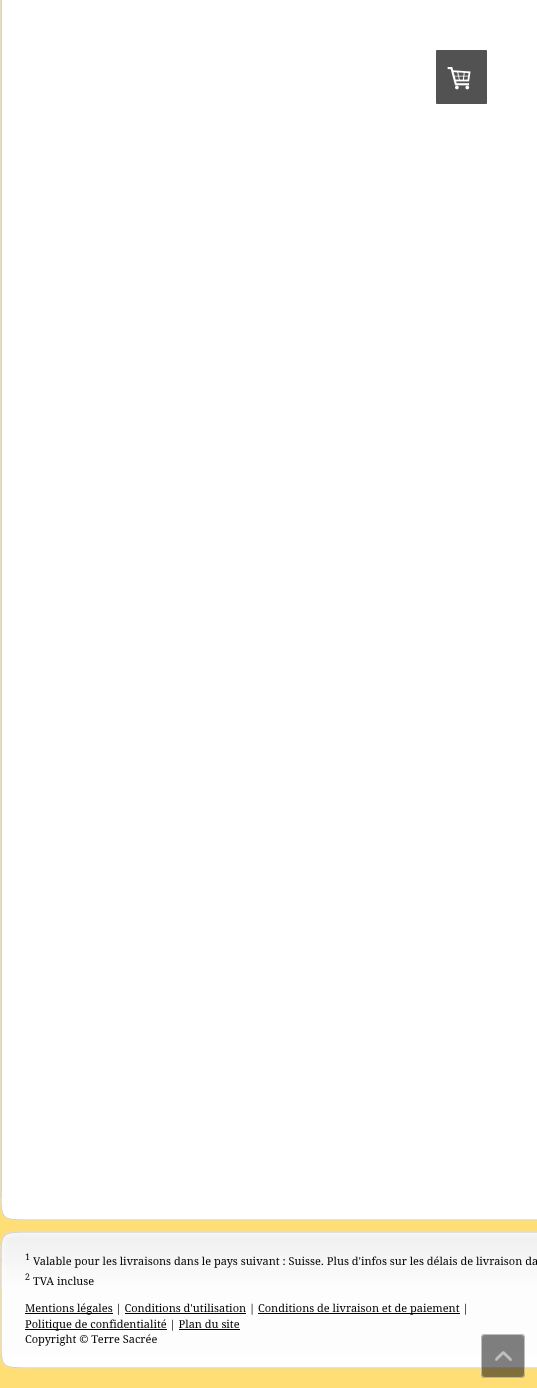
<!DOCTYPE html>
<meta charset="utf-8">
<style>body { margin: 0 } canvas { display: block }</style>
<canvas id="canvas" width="537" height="1388"></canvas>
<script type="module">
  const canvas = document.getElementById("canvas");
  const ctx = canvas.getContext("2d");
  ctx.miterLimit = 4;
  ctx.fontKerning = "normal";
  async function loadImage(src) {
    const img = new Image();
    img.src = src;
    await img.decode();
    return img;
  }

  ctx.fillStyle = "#ffde75";
  ctx.fillRect(0, 0, 537, 1388);
  ctx.drawImage(await loadImage("img1.png"), 0, 0, 537, 1198);
  ctx.fillStyle = "#525252";
  ctx.beginPath();
  ctx.roundRect(436, 50, 51, 54, 1);
  ctx.fill();
  ctx.drawImage(await loadImage("img2.png"), 447, 67, 24, 23);
  ctx.drawImage(await loadImage("img3.png"), 0, 1198, 537, 23);
  ctx.drawImage(await loadImage("img4.png"), 1, 1231, 536, 13);
  ctx.drawImage(await loadImage("img5.png"), 0, 1244, 537, 108);
  ctx.drawImage(await loadImage("img6.png"), 0, 1244, 537, 44);
  ctx.font = "9px Droid Serif";
  ctx.fillStyle = "#000000";
  ctx.fillText("1", 25, 1260);
  ctx.font = "11px Droid Serif";
  ctx.fillText("Valable pour les livraisons dans le pays suivant : Suisse. Plus d'infos sur les délais de livraison da", 33, 1265);
  ctx.font = "9px Droid Serif";
  ctx.fillText("2", 25, 1280);
  ctx.font = "11px Droid Serif";
  ctx.fillText("TVA incluse", 33, 1285);
  ctx.fillRect(25, 1313, 88, 1);
  ctx.fillText("Mentions légales | Conditions d'utilisation |", 25, 1312);
  ctx.fillRect(258, 1313, 202, 1);
  ctx.fillText("Conditions de livraison et de paiement |", 258, 1312);
  ctx.fillRect(125, 1313, 121, 1);
  ctx.fillRect(25, 1329, 142, 1);
  ctx.fillText("Politique de confidentialité | Plan du site", 25, 1328);
  ctx.fillRect(179, 1329, 61, 1);
  ctx.fillText("Copyright © Terre Sacrée", 25, 1343);
  ctx.drawImage(await loadImage("img7.png"), 0, 1352, 537, 17);
  ctx.fillStyle = "rgba(0, 0, 0, 0.5)";
  ctx.beginPath();
  ctx.roundRect(481, 1334, 44, 44, 4);
  ctx.fill();
  ctx.beginPath();
  ctx.roundRect(481.5, 1334.5, 43, 43, 3.5);
  ctx.strokeStyle = "rgba(255, 255, 255, 0.5)";
  ctx.stroke();
  ctx.drawImage(await loadImage("img8.png"), 495, 1351, 17, 10);
</script>
